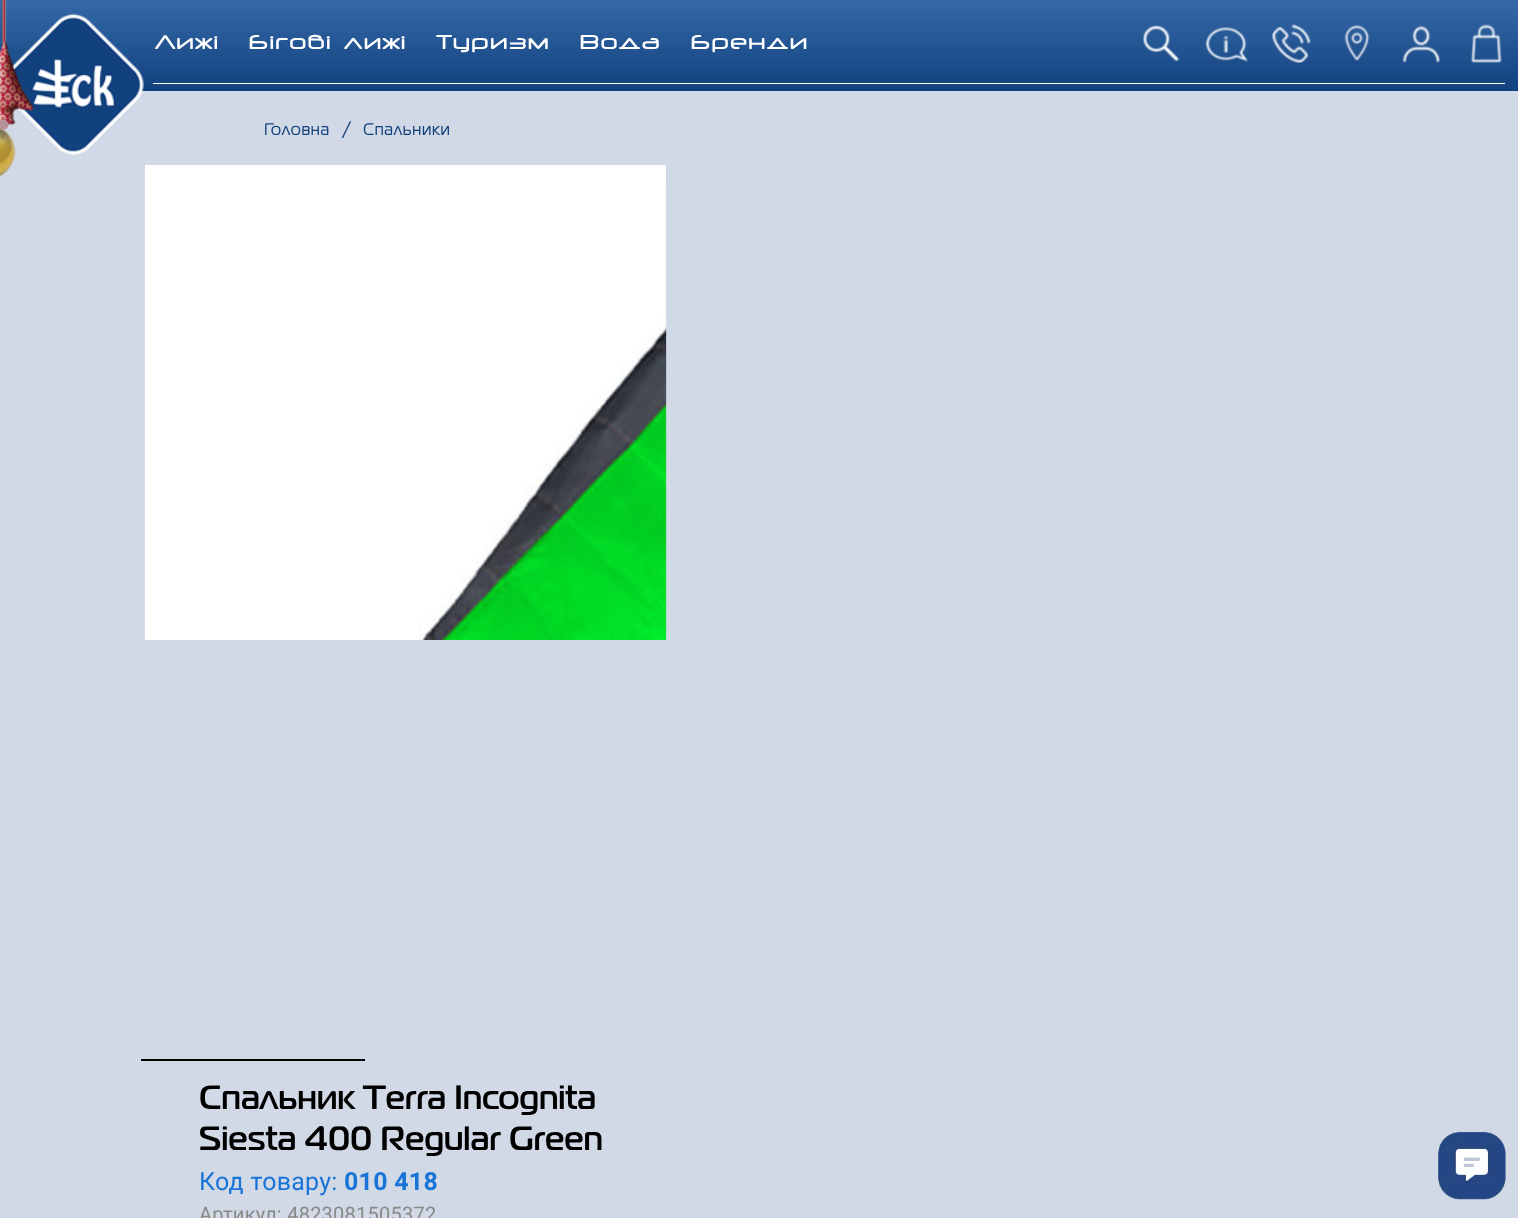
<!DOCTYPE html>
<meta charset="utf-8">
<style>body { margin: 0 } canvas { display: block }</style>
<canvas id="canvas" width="1518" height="1218"></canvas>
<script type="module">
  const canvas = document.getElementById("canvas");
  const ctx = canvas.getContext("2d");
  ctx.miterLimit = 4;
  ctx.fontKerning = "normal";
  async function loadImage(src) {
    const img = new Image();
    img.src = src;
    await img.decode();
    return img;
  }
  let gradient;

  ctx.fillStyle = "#d0d9e5";
  ctx.fillRect(0, 0, 1518, 1218);
  gradient = ctx.createLinearGradient(759, 91, 759, 0);
  gradient.addColorStop(0, "#12427e");
  gradient.addColorStop(1, "#3568a8");
  ctx.fillStyle = gradient;
  ctx.fillRect(0, 0, 1518, 91);
  ctx.drawImage(await loadImage("img1.png"), 0, 0, 144, 177);
  ctx.letterSpacing = "0.25px";
  ctx.font = "500 22.5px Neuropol";
  ctx.fillStyle = "#ffffff";
  ctx.fillText("Лижі", 155, 49);
  ctx.fillText("Бігові лижі", 248, 49);
  ctx.fillText("Туризм", 436, 49);
  ctx.fillText("Вода", 579, 49);
  ctx.fillText("Бренди", 690, 49);
  ctx.drawImage(await loadImage("img2.png"), 1142, 25, 38, 37);
  ctx.drawImage(await loadImage("img3.png"), 1205, 27, 43, 35);
  ctx.drawImage(await loadImage("img4.png"), 1272, 24, 39, 39);
  ctx.drawImage(await loadImage("img5.png"), 1344, 24, 26, 37);
  ctx.drawImage(await loadImage("img6.png"), 1402, 25, 39, 38);
  ctx.drawImage(await loadImage("img7.png"), 1470, 24, 32, 39);
  ctx.fillRect(153, 83, 1352, 1);
  ctx.font = "90px Roboto";
  ctx.fillStyle = "#b89097";
  ctx.fillText(".", -8, 129);
  ctx.letterSpacing = "1.25px";
  ctx.font = "bold 16.25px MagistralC";
  ctx.fillStyle = "#12427e";
  ctx.fillText("Головна", 264, 135);
  ctx.font = "bold 18px MagistralC";
  ctx.fillText("/", 342, 135);
  ctx.font = "bold 16.25px MagistralC";
  ctx.fillText("Спальники", 363, 135);
  ctx.fillStyle = "#ffffff";
  ctx.fillRect(145, 165, 521, 475);
  ctx.drawImage(await loadImage("img8.png"), 418, 188, 249, 452);
  ctx.fillStyle = "#000000";
  ctx.fillRect(141, 1059, 224, 2);
  ctx.letterSpacing = "0.25px";
  ctx.font = "bold 33.75px 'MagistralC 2'";
  ctx.fillText("Спальник Terra Incognita", 199, 1109);
  ctx.fillText("Siesta 400 Regular Green", 199, 1150);
  ctx.font = "25px Roboto";
  ctx.fillStyle = "#1874d7";
  ctx.fillText("Код товару:", 199, 1190);
  ctx.font = "bold 25px Roboto";
  ctx.fillText("010 418", 344, 1190);
  ctx.font = "20px Roboto";
  ctx.fillStyle = "#898989";
  ctx.fillText("Артикул: 4823081505372", 199, 1221);
  ctx.drawImage(await loadImage("img9.png"), 1438, 1132, 68, 68);
</script>
